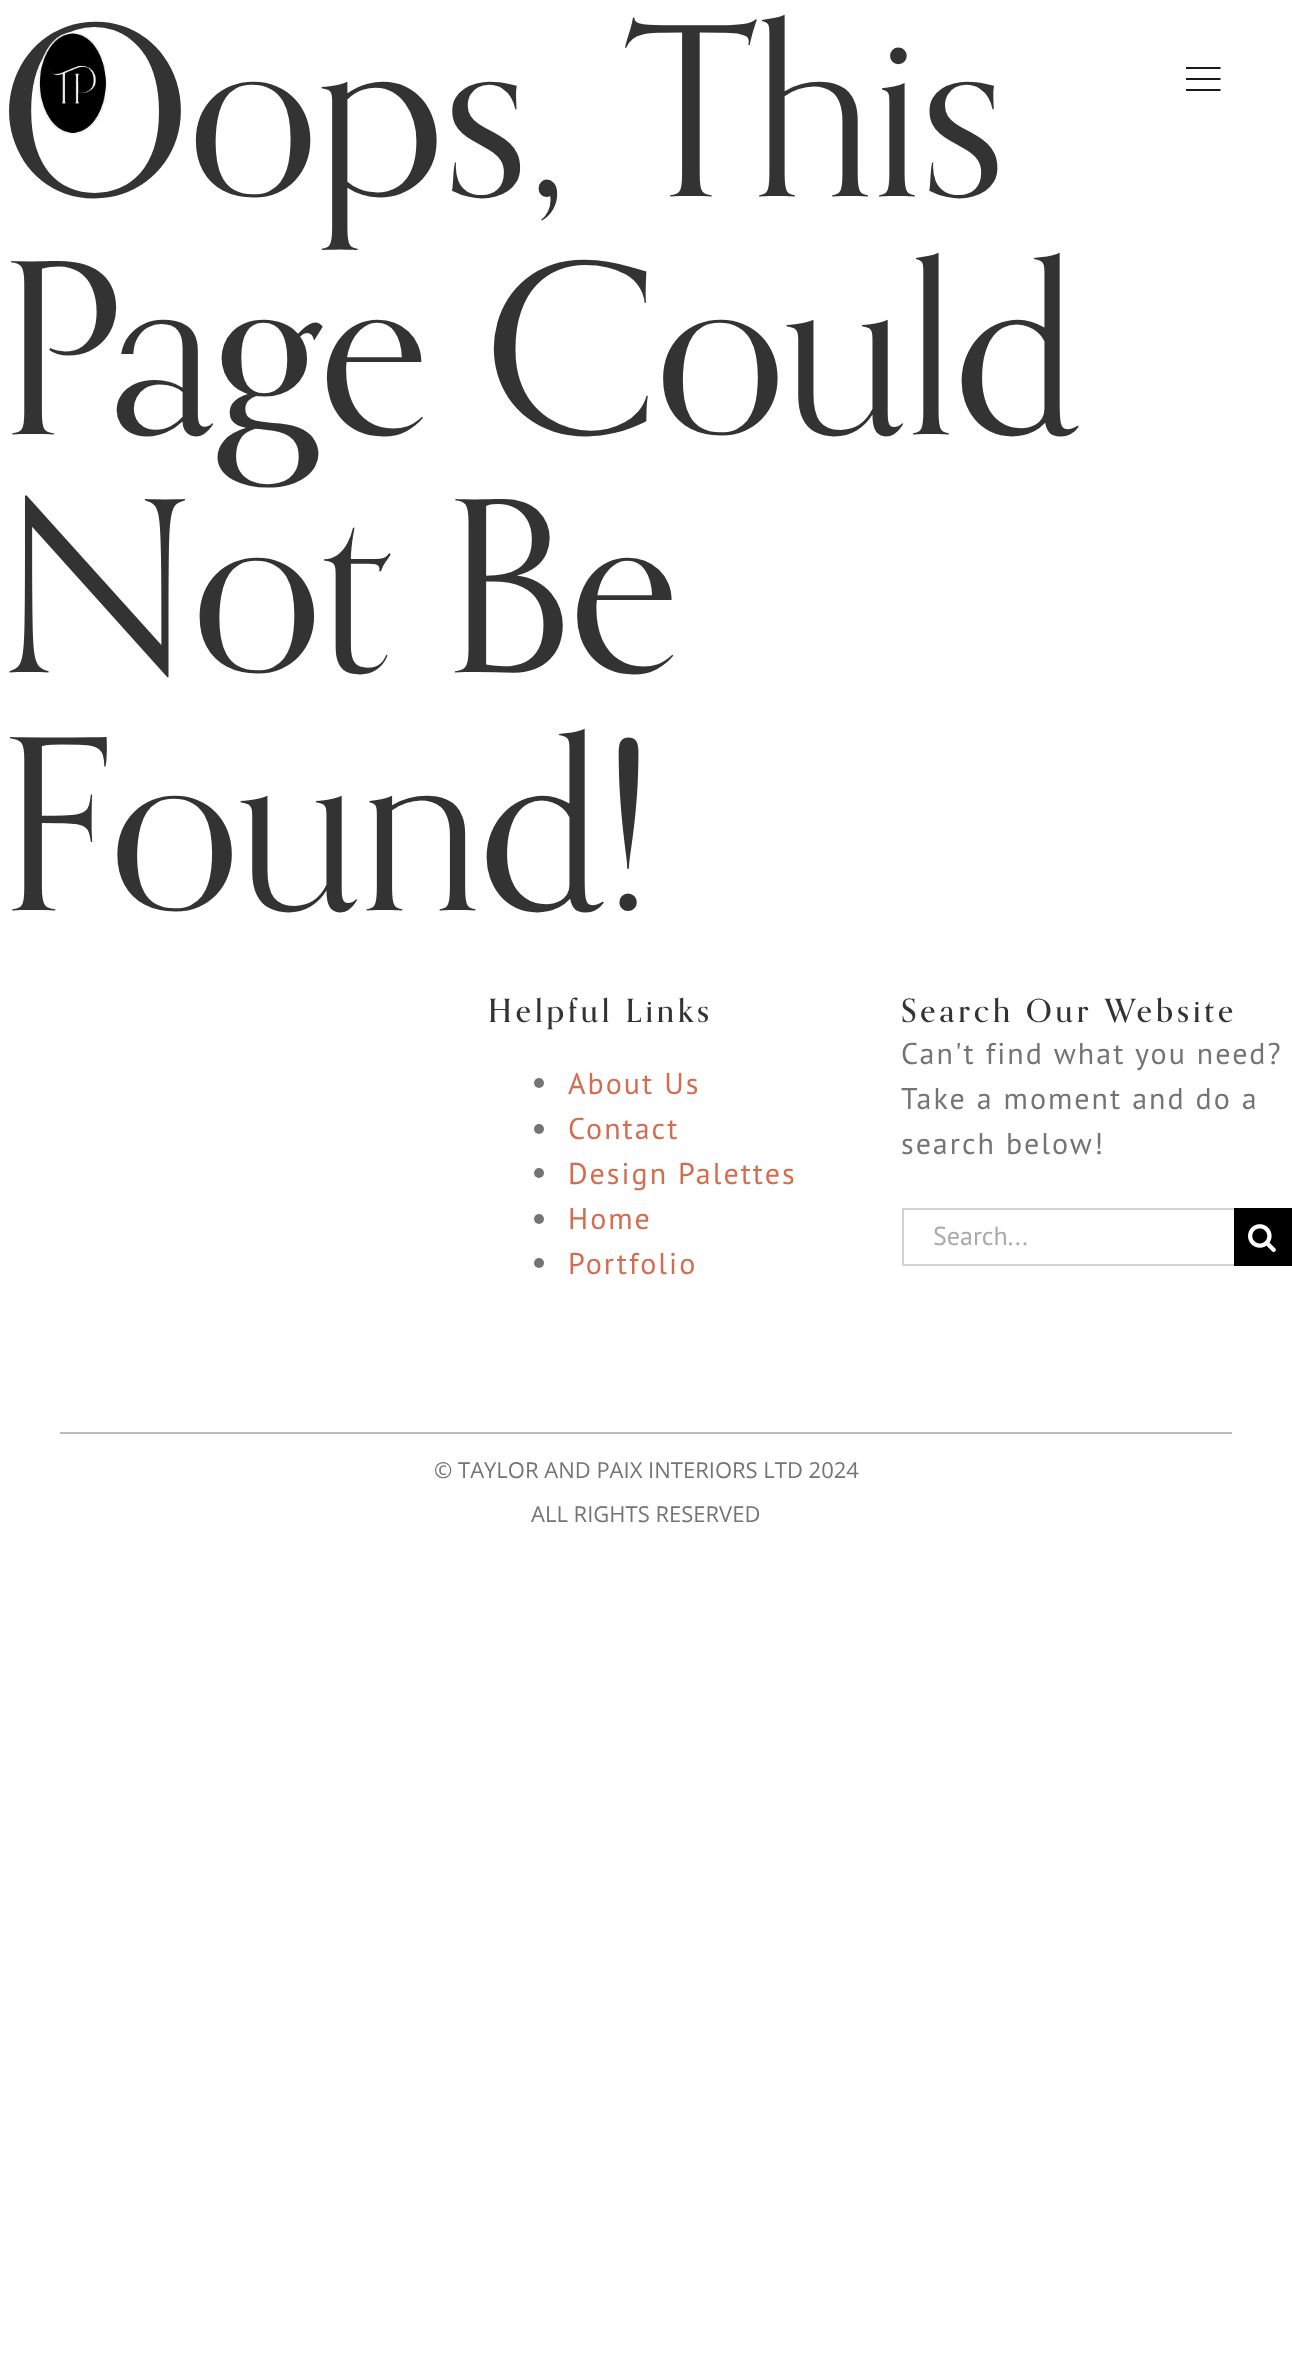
<!DOCTYPE html>
<meta charset="utf-8">
<style>body { margin: 0 } canvas { display: block }</style>
<canvas id="canvas" width="1292" height="2358"></canvas>
<script type="module">
  const canvas = document.getElementById("canvas");
  const ctx = canvas.getContext("2d");
  ctx.miterLimit = 4;
  ctx.fontKerning = "normal";
  async function loadImage(src) {
    const img = new Image();
    img.src = src;
    await img.decode();
    return img;
  }

  ctx.fillStyle = "#ffffff";
  ctx.fillRect(0, 0, 1292, 2358);
  ctx.letterSpacing = "-2px";
  ctx.font = "238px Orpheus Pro";
  ctx.fillStyle = "#333333";
  ctx.fillText("Oops, This", 0, 196);
  ctx.fillText("Page Could", 0, 434);
  ctx.fillText("Not Be", 0, 672);
  ctx.fillText("Found!", 0, 910);
  ctx.letterSpacing = "4px";
  ctx.font = "500 32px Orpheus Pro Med";
  ctx.fillText("Helpful Links", 488, 1022);
  ctx.fillStyle = "#747474";
  ctx.beginPath();
  ctx.arc(539, 1083, 5, 0, Math.PI * 2);
  ctx.fill();
  ctx.letterSpacing = "2px";
  ctx.font = "30px PT Sans";
  ctx.fillStyle = "#d46c4f";
  ctx.fillText("About Us", 568, 1094);
  ctx.fillStyle = "#747474";
  ctx.beginPath();
  ctx.arc(539, 1129, 5, 0, Math.PI * 2);
  ctx.fill();
  ctx.fillStyle = "#d46c4f";
  ctx.fillText("Contact", 568, 1139);
  ctx.fillStyle = "#747474";
  ctx.beginPath();
  ctx.arc(539, 1173, 5, 0, Math.PI * 2);
  ctx.fill();
  ctx.fillStyle = "#d46c4f";
  ctx.fillText("Design Palettes", 568, 1184);
  ctx.fillStyle = "#747474";
  ctx.beginPath();
  ctx.arc(539, 1219, 5, 0, Math.PI * 2);
  ctx.fill();
  ctx.fillStyle = "#d46c4f";
  ctx.fillText("Home", 568, 1229);
  ctx.fillStyle = "#747474";
  ctx.beginPath();
  ctx.arc(539, 1263, 5, 0, Math.PI * 2);
  ctx.fill();
  ctx.fillStyle = "#d46c4f";
  ctx.fillText("Portfolio", 568, 1274);
  ctx.letterSpacing = "4px";
  ctx.font = "500 32px Orpheus Pro Med";
  ctx.fillStyle = "#333333";
  ctx.fillText("Search Our Website", 901, 1022);
  ctx.letterSpacing = "2px";
  ctx.font = "30px PT Sans";
  ctx.fillStyle = "#747474";
  ctx.fillText("Can't find what you need?", 901, 1064);
  ctx.fillText("Take a moment and do a", 901, 1109);
  ctx.fillText("search below!", 901, 1154);
  ctx.fillStyle = "#d2d2d2";
  ctx.fillRect(902, 1208, 332, 2);
  ctx.fillRect(902, 1264, 332, 2);
  ctx.fillRect(902, 1208, 2, 58);
  ctx.letterSpacing = "0px";
  ctx.font = "26px PT Sans";
  ctx.fillStyle = "#aaa9a9";
  ctx.fillText("Search...", 933, 1245);
  ctx.fillStyle = "#000000";
  ctx.fillRect(1234, 1208, 58, 58);
  ctx.drawImage(await loadImage("img1.png"), 1248, 1224, 28, 28);
  ctx.drawImage(await loadImage("img2.png"), 38, 31, 70, 104);
  ctx.fillStyle = "#191919";
  ctx.beginPath();
  ctx.moveTo(1186, 67);
  ctx.lineTo(1186, 69);
  ctx.lineTo(1220.5, 69);
  ctx.lineTo(1220.5, 67);
  ctx.closePath();
  ctx.moveTo(1186, 80);
  ctx.lineTo(1220.5, 80);
  ctx.lineTo(1220.5, 78);
  ctx.lineTo(1186, 78);
  ctx.closePath();
  ctx.moveTo(1186, 91);
  ctx.lineTo(1220.5, 91);
  ctx.lineTo(1220.5, 89);
  ctx.lineTo(1186, 89);
  ctx.closePath();
  ctx.fill();
  ctx.fillStyle = "#bababa";
  ctx.fillRect(60, 1432, 1172, 2);
  ctx.font = "22px Open Sans";
  ctx.fillStyle = "#747474";
  ctx.fillText("© TAYLOR AND PAIX INTERIORS LTD 2024", 434, 1478);
  ctx.fillText("ALL RIGHTS RESERVED", 531, 1522);
</script>
